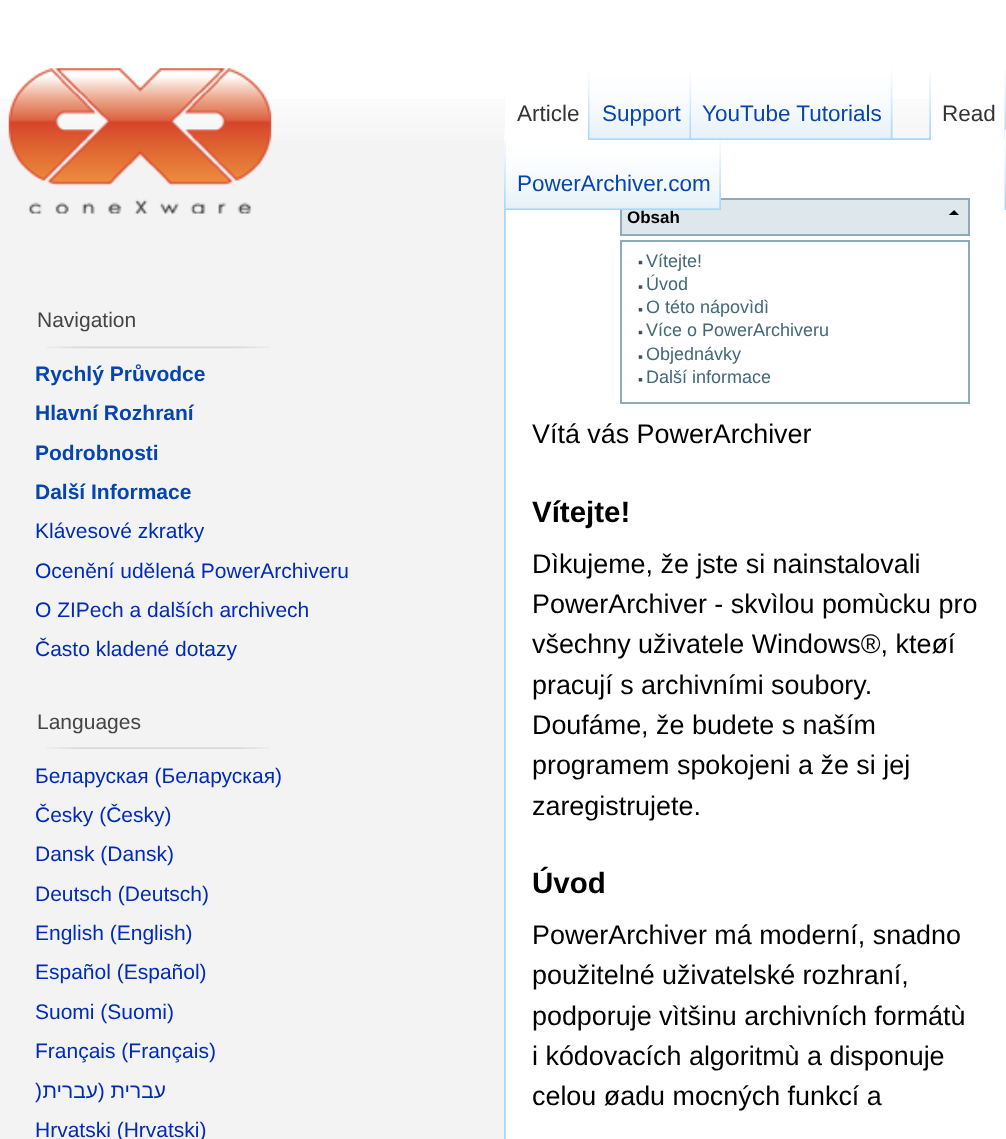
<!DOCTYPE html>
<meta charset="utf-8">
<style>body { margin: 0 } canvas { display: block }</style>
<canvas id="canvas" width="1006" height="1139"></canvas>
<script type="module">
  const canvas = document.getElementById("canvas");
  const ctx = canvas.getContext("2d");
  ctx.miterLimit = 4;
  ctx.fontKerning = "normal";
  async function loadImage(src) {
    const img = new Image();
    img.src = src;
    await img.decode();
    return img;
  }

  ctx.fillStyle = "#f3f3f3";
  ctx.fillRect(0, 0, 1006, 1139);
  ctx.fillStyle = "#ffffff";
  ctx.fillRect(0, 0, 1006, 99);
  ctx.drawImage(await loadImage("img1.png"), 0, 99, 930, 41);
  ctx.fillRect(505, 140, 501, 999);
  ctx.drawImage(await loadImage("img17.png"), 504, 140, 2, 999);
  ctx.drawImage(await loadImage("img2.png"), 504, 130, 2, 80);
  ctx.fillRect(931, 99, 74, 41);
  ctx.drawImage(await loadImage("img12.png"), 1004, 70, 2, 70);
  ctx.drawImage(await loadImage("img3.png"), 1004, 129, 2, 81);
  ctx.fillRect(505, 99, 85, 41);
  ctx.drawImage(await loadImage("img4.png"), 588, 70, 2, 70);
  ctx.font = "22.5px Liberation Sans";
  ctx.fillStyle = "#333333";
  ctx.fillText("Article", 517, 121);
  ctx.drawImage(await loadImage("img13.png"), 691, 138, 240, 2);
  ctx.drawImage(await loadImage("img5.png"), 589, 70, 103, 70);
  ctx.drawImage(await loadImage("img6.png"), 689, 70, 3, 69);
  ctx.fillStyle = "#0645ad";
  ctx.fillText("Support", 602, 121);
  ctx.drawImage(await loadImage("img7.png"), 691, 70, 202, 70);
  ctx.drawImage(await loadImage("img8.png"), 890, 70, 3, 70);
  ctx.fillText("YouTube Tutorials", 702, 121);
  ctx.fillStyle = "#dee7ec";
  ctx.beginPath();
  ctx.rect(621, 199, 348, 36);
  ctx.fill();
  ctx.strokeStyle = "#8cacbb";
  ctx.lineWidth = 2;
  ctx.stroke();
  ctx.drawImage(await loadImage("img9.png"), 505, 140, 216, 70);
  ctx.drawImage(await loadImage("img10.png"), 719, 140, 2, 69);
  ctx.fillStyle = "#0645ad";
  ctx.fillText("PowerArchiver.com", 517, 191);
  ctx.drawImage(await loadImage("img11.png"), 929, 70, 2, 69);
  ctx.fillStyle = "#333333";
  ctx.fillText("Read", 942, 121);
  ctx.drawImage(await loadImage("img14.png"), 8, 68, 264, 146);
  ctx.font = "21px Liberation Sans";
  ctx.fillStyle = "#444444";
  ctx.fillText("Navigation", 37, 327);
  ctx.drawImage(await loadImage("img15.png"), 46, 346, 224, 3);
  ctx.font = "bold 21px Liberation Sans";
  ctx.fillStyle = "#0645ad";
  ctx.fillText("Rychlý Průvodce", 35, 381);
  ctx.fillText("Hlavní Rozhraní", 35, 420);
  ctx.fillText("Podrobnosti", 35, 460);
  ctx.fillText("Další Informace", 35, 499);
  ctx.font = "21px Liberation Sans";
  ctx.fillStyle = "#002bb8";
  ctx.fillText("Klávesové zkratky", 35, 538);
  ctx.fillText("Ocenění udělená PowerArchiveru", 35, 578);
  ctx.fillText("O ZIPech a dalších archivech", 35, 617);
  ctx.fillText("Často kladené dotazy", 35, 656);
  ctx.fillStyle = "#444444";
  ctx.fillText("Languages", 37, 729);
  ctx.drawImage(await loadImage("img16.png"), 46, 747, 224, 2);
  ctx.fillStyle = "#002bb8";
  ctx.fillText("Беларуская (Беларуская)", 35, 783);
  ctx.fillText("Česky (Česky)", 35, 822);
  ctx.fillText("Dansk (Dansk)", 35, 861);
  ctx.fillText("Deutsch (Deutsch)", 35, 901);
  ctx.fillText("English (English)", 35, 940);
  ctx.fillText("Español (Español)", 35, 979);
  ctx.fillText("Suomi (Suomi)", 35, 1019);
  ctx.fillText("Français (Français)", 35, 1058);
  ctx.fillText(")", 35, 1098);
  ctx.direction = "rtl";
  ctx.fillText("עברית", 98, 1098);
  ctx.fillText("עברית (", 166, 1098);
  ctx.direction = "ltr";
  ctx.fillText("Hrvatski (Hrvatski)", 35, 1137);
  ctx.font = "bold 17px Liberation Sans";
  ctx.fillStyle = "#000000";
  ctx.fillText("Obsah", 627, 223);
  ctx.beginPath();
  ctx.moveTo(959, 215);
  ctx.lineTo(948.5, 215);
  ctx.lineTo(954, 210);
  ctx.closePath();
  ctx.fill();
  ctx.fillStyle = "#dee7ec";
  ctx.beginPath();
  ctx.moveTo(948.5, 215);
  ctx.lineTo(948.5, 205);
  ctx.lineTo(954, 210);
  ctx.closePath();
  ctx.fill();
  ctx.strokeRect(621, 241, 348, 162);
  ctx.drawImage(await loadImage("img18.png"), 638, 260, 5, 5);
  ctx.font = "18px Liberation Sans";
  ctx.fillStyle = "#436976";
  ctx.fillText("Vítejte!", 646, 267);
  ctx.drawImage(await loadImage("img19.png"), 638, 285, 5, 4);
  ctx.fillText("Úvod", 646, 290);
  ctx.drawImage(await loadImage("img20.png"), 638, 308, 5, 4);
  ctx.fillText("O této nápovìdì", 646, 313);
  ctx.drawImage(await loadImage("img18.png"), 638, 330, 5, 5);
  ctx.fillText("Více o PowerArchiveru", 646, 336);
  ctx.drawImage(await loadImage("img19.png"), 638, 355, 5, 4);
  ctx.fillText("Objednávky", 646, 360);
  ctx.drawImage(await loadImage("img20.png"), 638, 378, 5, 4);
  ctx.fillText("Další informace", 646, 383);
  ctx.font = "26.9px Liberation Sans";
  ctx.fillStyle = "#000000";
  ctx.fillText("Vítá vás PowerArchiver", 532, 443);
  ctx.font = "bold 29.5px Liberation Sans";
  ctx.fillText("Vítejte!", 532, 522);
  ctx.font = "26.9px Liberation Sans";
  ctx.fillText("Dìkujeme, že jste si nainstalovali", 532, 573);
  ctx.fillText("PowerArchiver - skvìlou pomùcku pro", 532, 613);
  ctx.fillText("všechny uživatele Windows®, kteøí", 532, 653);
  ctx.fillText("pracují s archivními soubory.", 532, 694);
  ctx.fillText("Doufáme, že budete s naším", 532, 734);
  ctx.fillText("programem spokojeni a že si jej", 532, 774);
  ctx.fillText("zaregistrujete.", 532, 815);
  ctx.font = "bold 29.5px Liberation Sans";
  ctx.fillText("Úvod", 532, 893);
  ctx.font = "26.9px Liberation Sans";
  ctx.fillText("PowerArchiver má moderní, snadno", 532, 944);
  ctx.fillText("použitelné uživatelské rozhraní,", 532, 984);
  ctx.fillText("podporuje vìtšinu archivních formátù", 532, 1025);
  ctx.fillText("i kódovacích algoritmù a disponuje", 532, 1065);
  ctx.fillText("celou øadu mocných funkcí a", 532, 1105);
</script>
